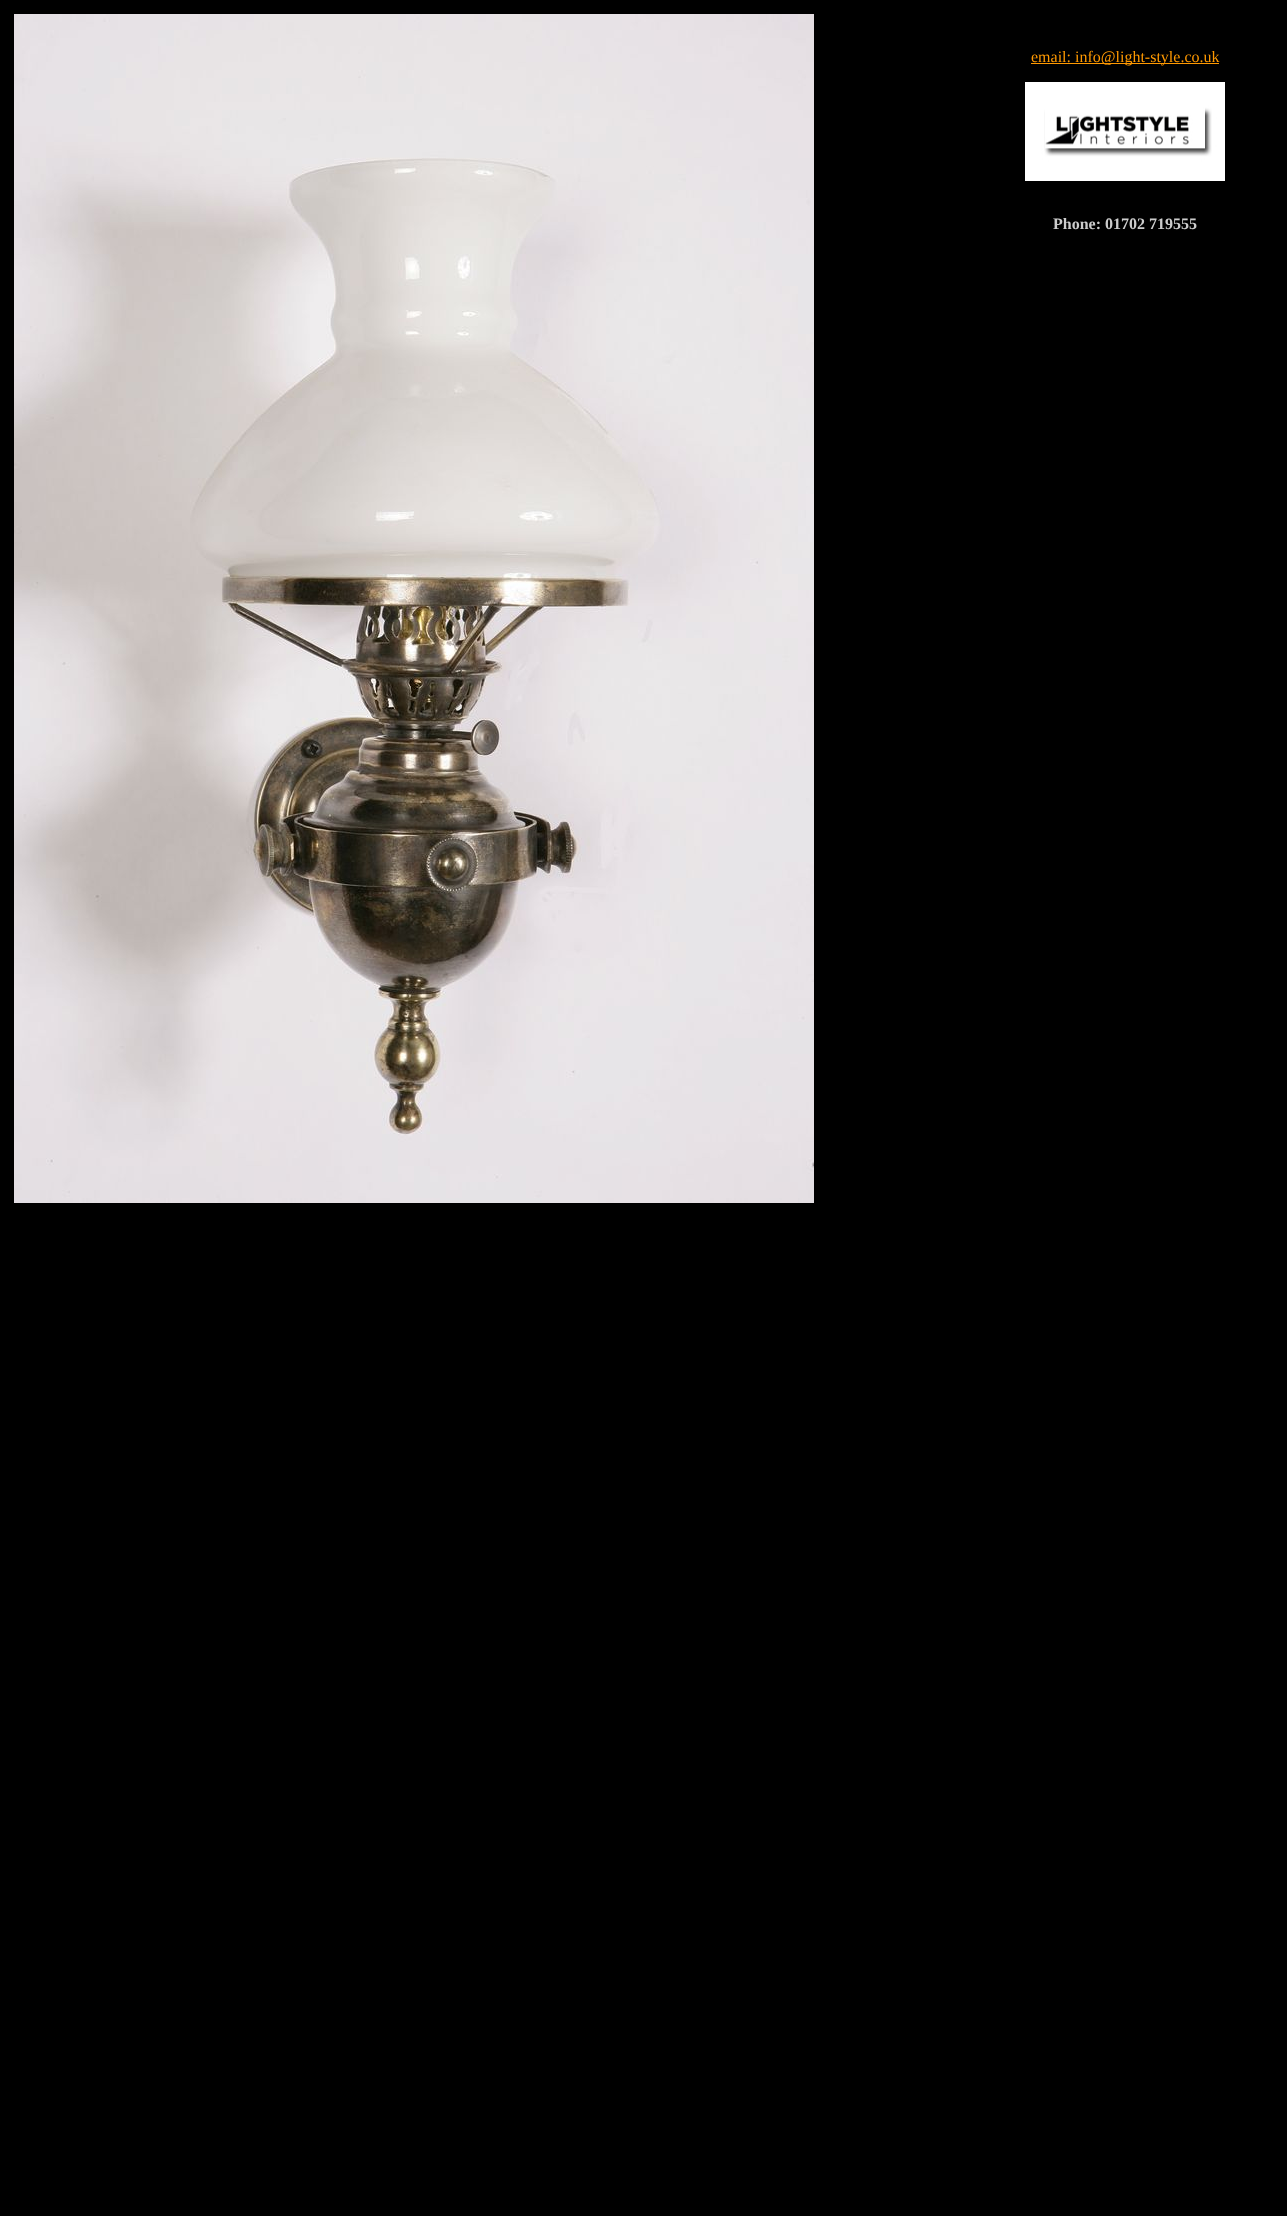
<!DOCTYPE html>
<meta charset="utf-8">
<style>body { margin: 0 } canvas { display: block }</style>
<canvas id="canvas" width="1287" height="2216"></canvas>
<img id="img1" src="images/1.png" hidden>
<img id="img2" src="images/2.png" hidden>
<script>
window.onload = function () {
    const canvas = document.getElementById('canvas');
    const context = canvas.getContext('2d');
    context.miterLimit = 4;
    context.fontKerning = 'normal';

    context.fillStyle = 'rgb(0, 0, 0)';
    context.fillRect(0, 0, 1287, 2216);
    context.drawImage(document.getElementById('img1'), 14, 14, 800, 1189);
    context.fillStyle = 'rgb(255, 153, 0)';
    context.fillRect(1031, 63, 188, 1);
    context.drawImage(document.getElementById('img2'), 1025, 82, 200, 99);
    context.font = '16px Liberation Serif';
    context.fillText('email: info@light-style.co.uk', 1031, 62);
    context.font = 'bold 16px Liberation Serif';
    context.fillStyle = 'rgb(204, 204, 204)';
    context.fillText('Phone: 01702 719555', 1053, 229);
};
</script>
